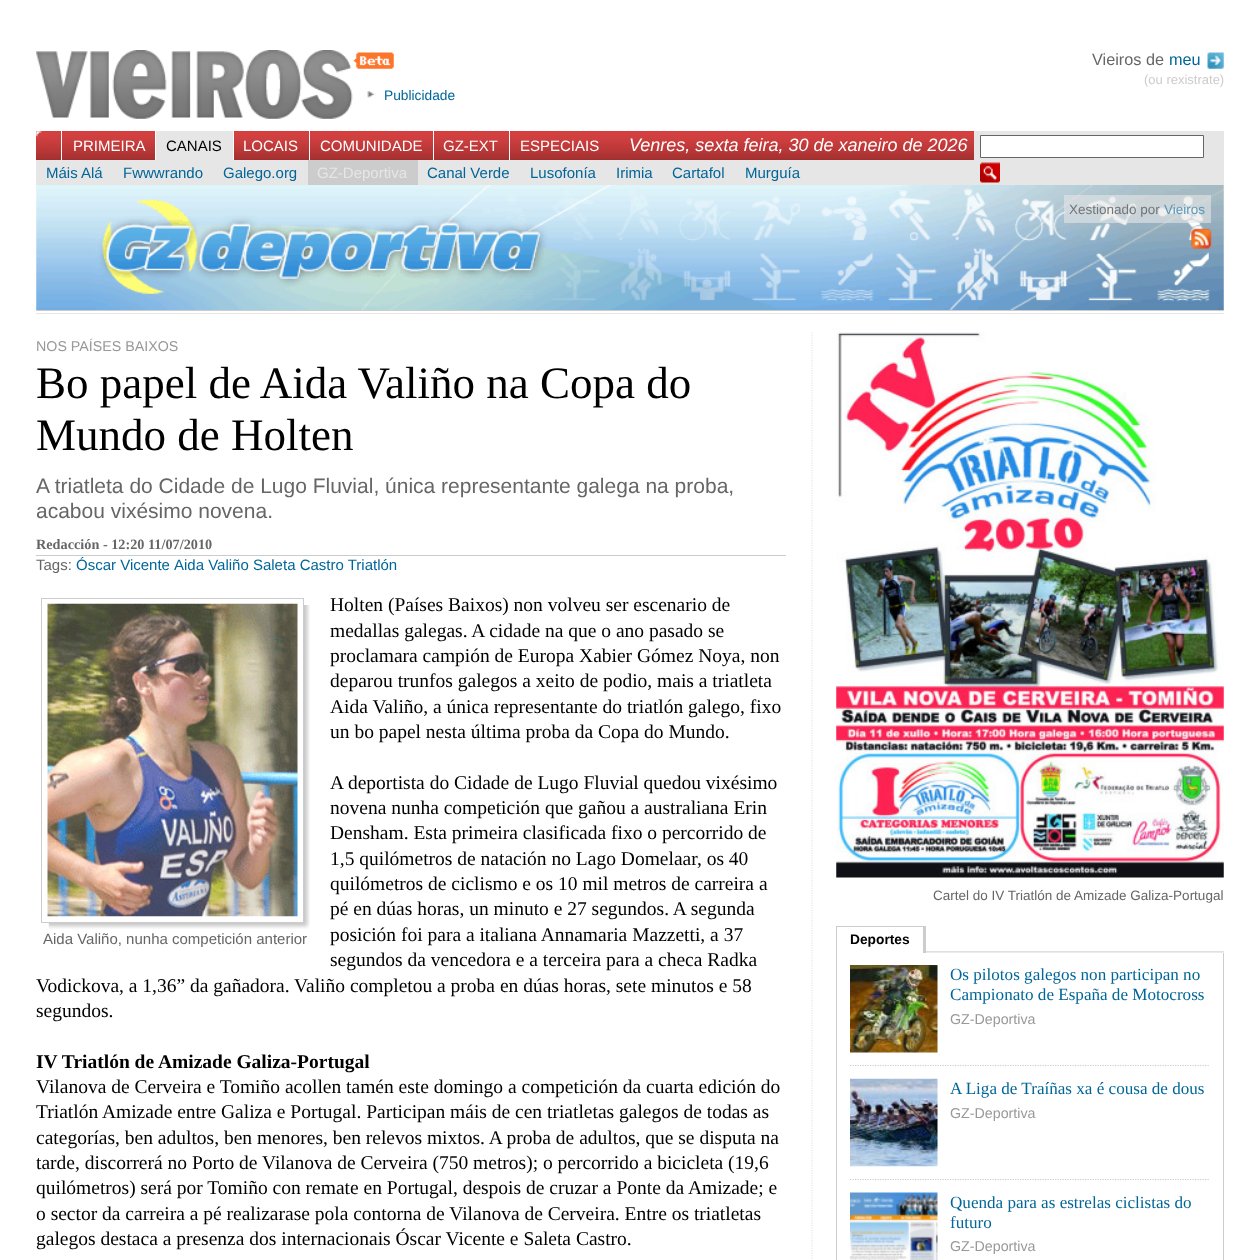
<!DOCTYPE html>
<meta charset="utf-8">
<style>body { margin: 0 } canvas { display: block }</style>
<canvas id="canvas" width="1260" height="1260"></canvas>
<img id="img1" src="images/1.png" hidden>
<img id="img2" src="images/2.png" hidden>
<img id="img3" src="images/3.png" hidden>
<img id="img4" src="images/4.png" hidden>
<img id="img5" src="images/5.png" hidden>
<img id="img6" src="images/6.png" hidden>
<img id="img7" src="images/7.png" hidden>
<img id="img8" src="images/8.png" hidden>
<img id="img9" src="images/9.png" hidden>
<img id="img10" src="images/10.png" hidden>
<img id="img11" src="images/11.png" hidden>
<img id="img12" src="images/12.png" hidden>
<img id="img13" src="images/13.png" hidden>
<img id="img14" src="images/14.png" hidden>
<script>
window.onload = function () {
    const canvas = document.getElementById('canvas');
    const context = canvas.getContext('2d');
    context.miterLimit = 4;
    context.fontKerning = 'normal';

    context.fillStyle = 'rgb(255, 255, 255)';
    context.fillRect(0, 0, 1260, 1260);
    context.drawImage(document.getElementById('img1'), 36, 50, 358, 69);
    context.drawImage(document.getElementById('img2'), 1207, 52, 17, 17);
    context.drawImage(document.getElementById('img3'), 367, 91, 8, 7);
    context.fillStyle = 'rgb(204, 51, 51)';
    context.fillRect(36, 131, 938, 29);
    context.drawImage(document.getElementById('img4'), 36, 131, 938, 29);
    context.fillStyle = 'rgb(255, 255, 255)';
    context.fillRect(61, 131, 1, 29);
    context.fillRect(155, 131, 1, 29);
    context.fillStyle = 'rgb(230, 230, 230)';
    context.fillRect(156, 131, 77, 29);
    context.fillStyle = 'rgb(255, 255, 255)';
    context.fillRect(233, 131, 1, 29);
    context.fillRect(309, 131, 1, 29);
    context.fillRect(433, 131, 1, 29);
    context.fillRect(509, 131, 1, 29);
    context.fillStyle = 'rgb(230, 230, 230)';
    context.fillRect(974, 131, 250, 29);
    context.fillStyle = 'rgb(255, 255, 255)';
    context.beginPath();
    context.rect(980.5, 135.5, 223, 22);
    context.fill();
    context.strokeStyle = 'rgb(102, 102, 102)';
    context.stroke();
    context.fillStyle = 'rgb(230, 230, 230)';
    context.fillRect(36, 160, 1188, 25);
    context.drawImage(document.getElementById('img5'), 980, 162, 20, 21);
    context.fillStyle = 'rgb(204, 204, 204)';
    context.fillRect(308, 160, 110, 25);
    context.drawImage(document.getElementById('img6'), 36, 185, 1188, 125);
    context.fillStyle = 'rgb(230, 230, 230)';
    context.fillRect(36, 313, 1188, 1);
    context.fillStyle = 'rgb(204, 204, 204)';
    context.fillRect(36, 310, 1188, 1);
    context.fillStyle = 'rgba(230, 230, 230, 0.6)';
    context.fillRect(1064, 195, 147, 28);
    context.drawImage(document.getElementById('img7'), 1191, 228, 21, 21);
    context.beginPath();
    context.moveTo(812, 332.5);
    context.lineTo(812, 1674);
    context.strokeStyle = 'rgb(230, 230, 230)';
    context.lineWidth = 1.2;
    context.setLineDash([1.25, 1.25]);
    context.stroke();
    context.fillStyle = 'rgb(204, 204, 204)';
    context.fillRect(36, 555, 750, 1);
    context.drawImage(document.getElementById('img8'), 48, 605, 262, 324);
    context.strokeStyle = 'rgb(204, 204, 204)';
    context.lineWidth = 1;
    context.setLineDash([]);
    context.strokeRect(41.5, 598.5, 262, 324);
    context.drawImage(document.getElementById('img9'), 47, 603, 251, 314);
    context.drawImage(document.getElementById('img10'), 836, 332, 388, 546);
    context.drawImage(document.getElementById('img11'), 926, 951, 298, 2);
    context.fillRect(836, 926, 89, 1);
    context.fillRect(923, 926, 3, 27);
    context.fillRect(836, 926, 1, 27);
    context.fillRect(1223, 953, 1, 307);
    context.fillRect(836, 953, 1, 307);
    context.beginPath();
    context.moveTo(850, 1065.5);
    context.lineTo(1210, 1065.5);
    context.lineWidth = 1.2;
    context.setLineDash([1.25, 1.25]);
    context.stroke();
    context.drawImage(document.getElementById('img12'), 850, 965, 88, 88);
    context.beginPath();
    context.moveTo(850, 1179.5);
    context.lineTo(1210, 1179.5);
    context.stroke();
    context.drawImage(document.getElementById('img13'), 850, 1078, 88, 89);
    context.drawImage(document.getElementById('img14'), 850, 1192, 88, 68);
    context.font = '16.25px Liberation Sans';
    context.fillStyle = 'rgb(102, 102, 102)';
    context.fillText('Vieiros de', 1092, 65);
    context.fillStyle = 'rgb(0, 102, 153)';
    context.fillText('meu', 1169, 65);
    context.font = '13px Liberation Sans';
    context.fillStyle = 'rgb(204, 204, 204)';
    context.fillText('(ou rexistrate)', 1144, 84);
    context.font = '13.75px Liberation Sans';
    context.fillStyle = 'rgb(0, 102, 153)';
    context.fillText('Publicidade', 384, 100);
    context.font = '15px Liberation Sans';
    context.fillStyle = 'rgb(255, 255, 255)';
    context.fillText('PRIMEIRA', 73, 151);
    context.fillStyle = 'rgb(0, 0, 0)';
    context.fillText('CANAIS', 166, 151);
    context.fillStyle = 'rgb(255, 255, 255)';
    context.fillText('LOCAIS', 243, 151);
    context.fillText('COMUNIDADE', 320, 151);
    context.fillText('GZ-EXT', 443, 151);
    context.fillText('ESPECIAIS', 520, 151);
    context.font = 'italic 18px Liberation Sans';
    context.fillText('Venres, sexta feira, 30 de xaneiro de 2026', 629, 151);
    context.font = '15px Liberation Sans';
    context.fillStyle = 'rgb(0, 102, 153)';
    context.fillText('Máis Alá', 46, 178);
    context.fillText('Fwwwrando', 123, 178);
    context.fillText('Galego.org', 223, 178);
    context.fillStyle = 'rgb(230, 230, 230)';
    context.fillText('GZ-Deportiva', 317, 178);
    context.fillStyle = 'rgb(0, 102, 153)';
    context.fillText('Canal Verde', 427, 178);
    context.fillText('Lusofonía', 530, 178);
    context.fillText('Irimia', 616, 178);
    context.fillText('Cartafol', 672, 178);
    context.fillText('Murguía', 745, 178);
    context.font = '13.5px Liberation Sans';
    context.fillStyle = 'rgb(115, 118, 120)';
    context.fillText('Xestionado por', 1069, 214);
    context.fillStyle = 'rgb(88, 151, 183)';
    context.fillText('Vieiros', 1164, 214);
    context.font = '14.25px Liberation Sans';
    context.fillStyle = 'rgb(153, 153, 153)';
    context.fillText('NOS PAÍSES BAIXOS', 36, 351);
    context.font = '45px Liberation Serif';
    context.fillStyle = 'rgb(0, 0, 0)';
    context.fillText('Bo papel de Aida Valiño na Copa do', 36, 398);
    context.fillText('Mundo de Holten', 36, 450);
    context.font = '21px Liberation Sans';
    context.fillStyle = 'rgb(102, 102, 102)';
    context.fillText('A triatleta do Cidade de Lugo Fluvial, única representante galega na proba,', 36, 493);
    context.fillText('acabou vixésimo novena.', 36, 518);
    context.font = 'bold 14.25px Liberation Serif';
    context.fillText('Redacción - 12:20 11/07/2010', 36, 549);
    context.font = '15px Liberation Sans';
    context.fillText('Tags:', 36, 570);
    context.fillStyle = 'rgb(0, 102, 153)';
    context.fillText('Óscar Vicente', 76, 570);
    context.fillText('Aida Valiño Saleta Castro Triatlón', 174, 570);
    context.font = '19.5px Liberation Serif';
    context.fillStyle = 'rgb(0, 0, 0)';
    context.fillText('Holten (Países Baixos) non volveu ser escenario de', 330, 611);
    context.fillText('medallas galegas. A cidade na que o ano pasado se', 330, 637);
    context.fillText('proclamara campión de Europa Xabier Gómez Noya, non', 330, 662);
    context.fillText('deparou trunfos galegos a xeito de podio, mais a triatleta', 330, 687);
    context.fillText('Aida Valiño, a única representante do triatlón galego, fixo', 330, 713);
    context.fillText('un bo papel nesta última proba da Copa do Mundo.', 330, 738);
    context.fillText('A deportista do Cidade de Lugo Fluvial quedou vixésimo', 330, 789);
    context.fillText('novena nunha competición que gañou a australiana Erin', 330, 814);
    context.fillText('Densham. Esta primeira clasificada fixo o percorrido de', 330, 839);
    context.fillText('1,5 quilómetros de natación no Lago Domelaar, os 40', 330, 865);
    context.fillText('quilómetros de ciclismo e os 10 mil metros de carreira a', 330, 890);
    context.fillText('pé en dúas horas, un minuto e 27 segundos. A segunda', 330, 915);
    context.fillText('posición foi para a italiana Annamaria Mazzetti, a 37', 330, 941);
    context.fillText('segundos da vencedora e a terceira para a checa Radka', 330, 966);
    context.fillText('Vodickova, a 1,36” da gañadora. Valiño completou a proba en dúas horas, sete minutos e 58', 36, 992);
    context.fillText('segundos.', 36, 1017);
    context.font = 'bold 19.5px Liberation Serif';
    context.fillText('IV Triatlón de Amizade Galiza-Portugal', 36, 1068);
    context.font = '19.5px Liberation Serif';
    context.fillText('Vilanova de Cerveira e Tomiño acollen tamén este domingo a competición da cuarta edición do', 36, 1093);
    context.fillText('Triatlón Amizade entre Galiza e Portugal. Participan máis de cen triatletas galegos de todas as', 36, 1118);
    context.fillText('categorías, ben adultos, ben menores, ben relevos mixtos. A proba de adultos, que se disputa na', 36, 1144);
    context.fillText('tarde, discorrerá no Porto de Vilanova de Cerveira (750 metros); o percorrido a bicicleta (19,6', 36, 1169);
    context.fillText('quilómetros) será por Tomiño con remate en Portugal, despois de cruzar a Ponte da Amizade; e', 36, 1194);
    context.fillText('o sector da carreira a pé realizarase pola contorna de Vilanova de Cerveira. Entre os triatletas', 36, 1220);
    context.fillText('galegos destaca a presenza dos internacionais Óscar Vicente e Saleta Castro.', 36, 1245);
    context.font = '15px Liberation Sans';
    context.fillStyle = 'rgb(102, 102, 102)';
    context.fillText('Aida Valiño, nunha competición anterior', 43, 944);
    context.font = '13.5px Liberation Sans';
    context.fillText('Cartel do IV Triatlón de Amizade Galiza-Portugal', 933, 900);
    context.font = 'bold 13.75px Liberation Sans';
    context.fillStyle = 'rgb(0, 0, 0)';
    context.fillText('Deportes', 850, 944);
    context.font = '17.1px Liberation Serif';
    context.fillStyle = 'rgb(0, 102, 153)';
    context.fillText('Os pilotos galegos non participan no', 950, 980);
    context.fillText('Campionato de España de Motocross', 950, 1000);
    context.font = '14.25px Liberation Sans';
    context.fillStyle = 'rgb(153, 153, 153)';
    context.fillText('GZ-Deportiva', 950, 1024);
    context.font = '17.1px Liberation Serif';
    context.fillStyle = 'rgb(0, 102, 153)';
    context.fillText('A Liga de Traíñas xa é cousa de dous', 950, 1094);
    context.font = '14.25px Liberation Sans';
    context.fillStyle = 'rgb(153, 153, 153)';
    context.fillText('GZ-Deportiva', 950, 1118);
    context.font = '17.1px Liberation Serif';
    context.fillStyle = 'rgb(0, 102, 153)';
    context.fillText('Quenda para as estrelas ciclistas do', 950, 1208);
    context.fillText('futuro', 950, 1228);
    context.font = '14.25px Liberation Sans';
    context.fillStyle = 'rgb(153, 153, 153)';
    context.fillText('GZ-Deportiva', 950, 1251);
};
</script>
